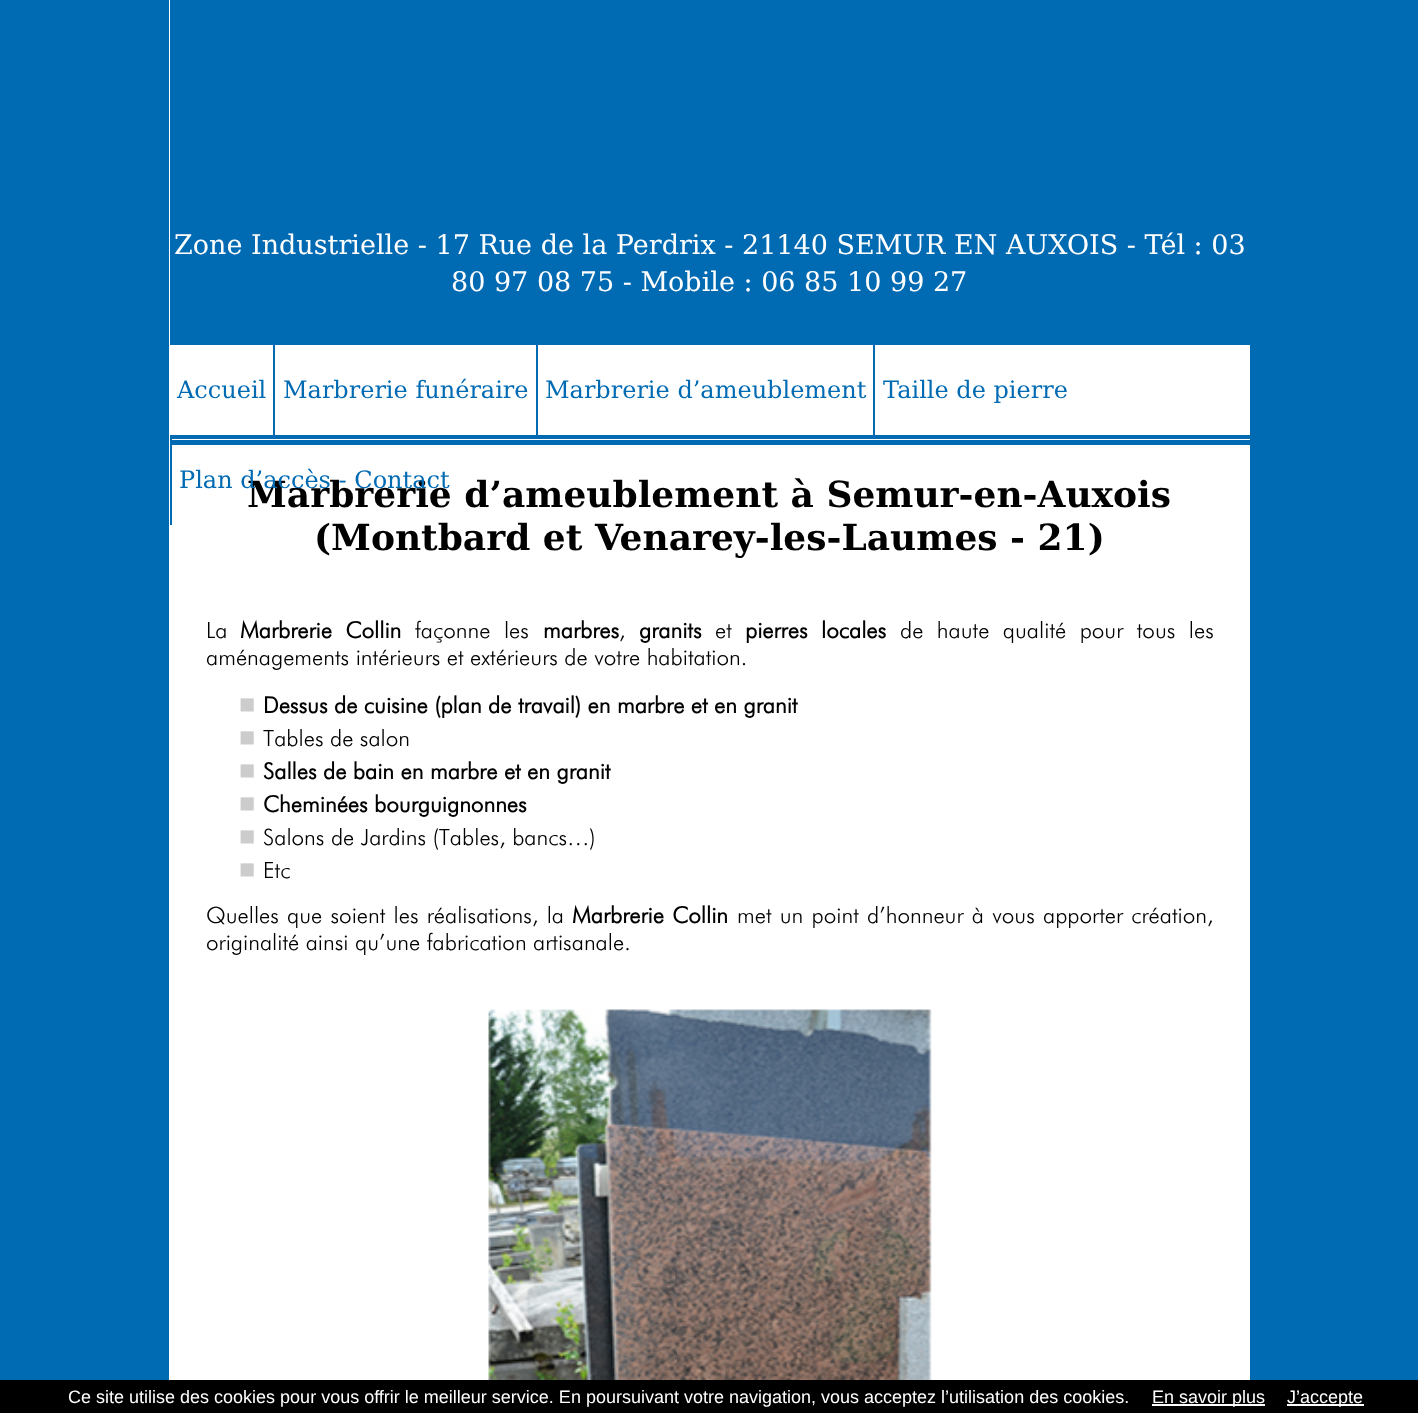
<!DOCTYPE html>
<meta charset="utf-8">
<style>body { margin: 0 } canvas { display: block }</style>
<canvas id="canvas" width="1418" height="1413"></canvas>
<img id="img1" src="images/1.png" hidden>
<script>
window.onload = function () {
    const canvas = document.getElementById('canvas');
    const context = canvas.getContext('2d');
    context.miterLimit = 4;
    context.fontKerning = 'normal';

    context.fillStyle = 'rgb(0, 106, 179)';
    context.fillRect(0, 0, 1418, 1413);
    context.fillStyle = 'rgb(255, 255, 255)';
    context.fillRect(169, 0, 1081, 1380);
    context.fillStyle = 'rgb(0, 106, 179)';
    context.fillRect(170, 0, 1080, 345);
    context.fillRect(273, 345, 2, 90);
    context.fillRect(536, 345, 2, 90);
    context.fillRect(873, 345, 2, 90);
    context.fillRect(170, 435, 1080, 4);
    context.fillRect(170, 440, 1080, 5);
    context.fillRect(170, 435, 2, 90);
    context.drawImage(document.getElementById('img1'), 488, 1009, 444, 371);
    context.fillStyle = 'rgb(0, 0, 0)';
    context.fillRect(0, 1380, 1418, 33);
    context.fillStyle = 'rgb(255, 255, 255)';
    context.fillRect(1152, 1404, 113, 2);
    context.fillRect(1287, 1404, 77, 2);
    context.font = '27px DejaVu Serif';
    context.fillText('Zone Industrielle - 17 Rue de la Perdrix - 21140 SEMUR EN AUXOIS - Tél : 03', 174, 254);
    context.fillText('80 97 08 75 - Mobile : 06 85 10 99 27', 451, 291);
    context.font = '24px DejaVu Serif';
    context.fillStyle = 'rgb(0, 106, 179)';
    context.fillText('Accueil', 177, 398);
    context.fillText('Marbrerie funéraire', 283, 398);
    context.fillText('Marbrerie d’ameublement', 545, 398);
    context.fillText('Taille de pierre', 883, 398);
    context.font = 'bold 36px DejaVu Serif';
    context.fillStyle = 'rgb(0, 0, 0)';
    context.fillText('Marbrerie d’ameublement à Semur-en-Auxois', 247, 507);
    context.font = '24px DejaVu Serif';
    context.fillStyle = 'rgb(0, 106, 179)';
    context.fillText('Plan d’accès - Contact', 179, 488);
    context.font = 'bold 36px DejaVu Serif';
    context.fillStyle = 'rgb(0, 0, 0)';
    context.fillText('(Montbard et Venarey-les-Laumes - 21)', 314, 550);
    context.font = '22.5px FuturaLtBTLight';
    context.fillText('La', 206, 638);
    context.wordSpacing = '7px';
    context.font = 'bold 22.5px FuturaLtBTLight';
    context.fillText('Marbrerie Collin', 240, 638);
    context.font = '22.5px FuturaLtBTLight';
    context.fillText('façonne les', 415, 638);
    context.wordSpacing = '0px';
    context.font = 'bold 22.5px FuturaLtBTLight';
    context.fillText('marbres', 543, 638);
    context.font = '22.5px FuturaLtBTLight';
    context.fillText(',', 619, 638);
    context.font = 'bold 22.5px FuturaLtBTLight';
    context.fillText('granits', 639, 638);
    context.font = '22.5px FuturaLtBTLight';
    context.fillText('et', 715, 638);
    context.wordSpacing = '7px';
    context.font = 'bold 22.5px FuturaLtBTLight';
    context.fillText('pierres locales', 745, 638);
    context.font = '22.5px FuturaLtBTLight';
    context.fillText('de haute qualité pour tous les', 900, 638);
    context.wordSpacing = '0px';
    context.fillText('aménagements intérieurs et extérieurs de votre habitation.', 206, 665);
    context.font = 'bold 27px Liberation Serif';
    context.fillStyle = 'rgb(204, 204, 204)';
    context.fillText('■', 239, 713);
    context.font = 'bold 22.5px FuturaLtBTLight';
    context.fillStyle = 'rgb(0, 0, 0)';
    context.fillText('Dessus de cuisine (plan de travail) en marbre et en granit', 263, 713);
    context.font = 'bold 27px Liberation Serif';
    context.fillStyle = 'rgb(204, 204, 204)';
    context.fillText('■', 239, 746);
    context.font = '22.5px FuturaLtBTLight';
    context.fillStyle = 'rgb(0, 0, 0)';
    context.fillText('Tables de salon', 263, 746);
    context.font = 'bold 27px Liberation Serif';
    context.fillStyle = 'rgb(204, 204, 204)';
    context.fillText('■', 239, 779);
    context.font = 'bold 22.5px FuturaLtBTLight';
    context.fillStyle = 'rgb(0, 0, 0)';
    context.fillText('Salles de bain en marbre et en granit', 263, 779);
    context.font = 'bold 27px Liberation Serif';
    context.fillStyle = 'rgb(204, 204, 204)';
    context.fillText('■', 239, 812);
    context.font = 'bold 22.5px FuturaLtBTLight';
    context.fillStyle = 'rgb(0, 0, 0)';
    context.fillText('Cheminées bourguignonnes', 263, 812);
    context.font = 'bold 27px Liberation Serif';
    context.fillStyle = 'rgb(204, 204, 204)';
    context.fillText('■', 239, 845);
    context.font = '22.5px FuturaLtBTLight';
    context.fillStyle = 'rgb(0, 0, 0)';
    context.fillText('Salons de Jardins (Tables, bancs…)', 263, 845);
    context.font = 'bold 27px Liberation Serif';
    context.fillStyle = 'rgb(204, 204, 204)';
    context.fillText('■', 239, 878);
    context.font = '22.5px FuturaLtBTLight';
    context.fillStyle = 'rgb(0, 0, 0)';
    context.fillText('Etc', 263, 878);
    context.wordSpacing = '1.75px';
    context.fillText('Quelles que soient les réalisations, la', 206, 923);
    context.font = 'bold 22.5px FuturaLtBTLight';
    context.fillText('Marbrerie Collin', 572, 923);
    context.font = '22.5px FuturaLtBTLight';
    context.fillText('met un point d’honneur à vous apporter création,', 737, 923);
    context.wordSpacing = '0px';
    context.fillText('originalité ainsi qu’une fabrication artisanale.', 206, 950);
    context.font = '18px Liberation Sans';
    context.fillStyle = 'rgb(255, 255, 255)';
    context.fillText('Ce site utilise des cookies pour vous offrir le meilleur service. En poursuivant votre navigation, vous acceptez l’utilisation des cookies.', 68, 1403);
    context.fillText('En savoir plus', 1152, 1403);
    context.fillText('J’accepte', 1287, 1403);
};
</script>
